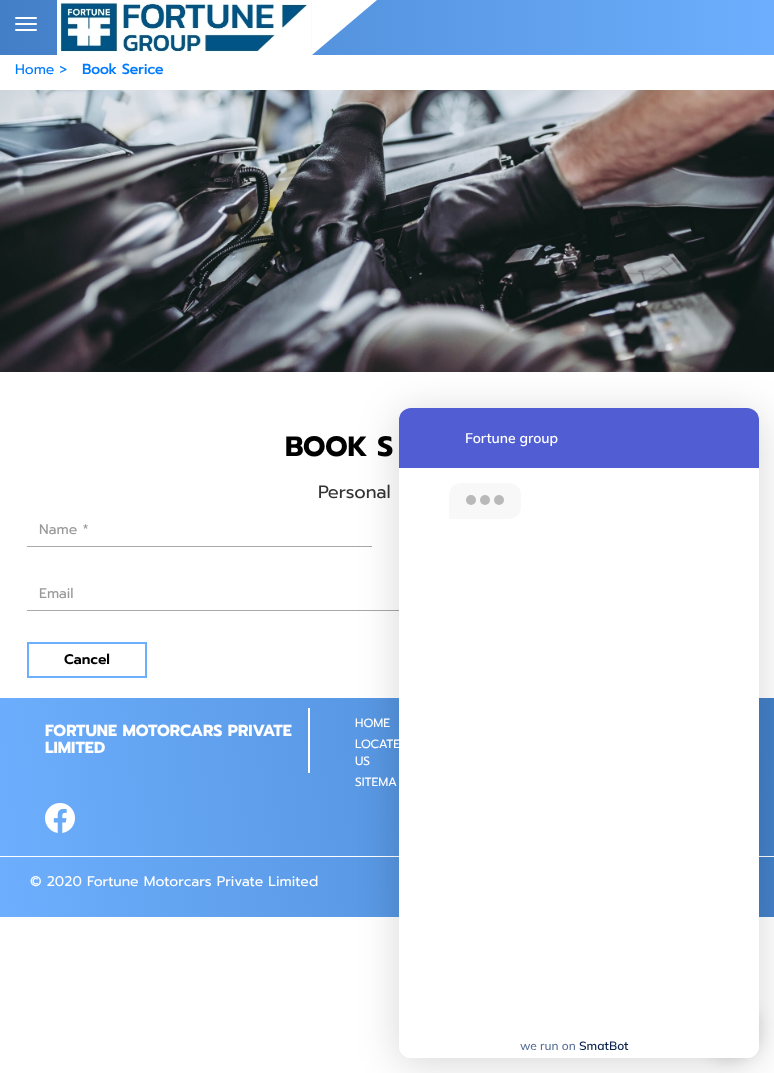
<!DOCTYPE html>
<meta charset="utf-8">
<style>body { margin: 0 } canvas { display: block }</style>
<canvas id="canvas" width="774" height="1073"></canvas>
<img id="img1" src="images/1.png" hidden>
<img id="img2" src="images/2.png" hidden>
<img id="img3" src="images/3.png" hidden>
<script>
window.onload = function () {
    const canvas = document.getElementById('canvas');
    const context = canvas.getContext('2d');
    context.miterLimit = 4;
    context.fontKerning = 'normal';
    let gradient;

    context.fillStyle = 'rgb(255, 255, 255)';
    context.fillRect(0, 0, 774, 1073);
    gradient = context.createLinearGradient(774, 27, 0, 28);
    gradient.addColorStop(0, 'rgb(109, 175, 254)');
    gradient.addColorStop(1, 'rgb(67, 127, 199)');
    context.fillStyle = gradient;
    context.fillRect(0, 0, 774, 55);
    context.fillStyle = 'rgb(255, 255, 255)';
    context.beginPath();
    context.roundRect(15, 17, 22, 2, 1);
    context.fill();
    context.beginPath();
    context.roundRect(15, 23, 22, 2, 1);
    context.fill();
    context.beginPath();
    context.roundRect(15, 29, 22, 2, 1);
    context.fill();
    context.drawImage(document.getElementById('img1'), 57, 0, 255, 55);
    context.beginPath();
    context.moveTo(312, 0);
    context.lineTo(377, 0);
    context.lineTo(312, 55);
    context.closePath();
    context.fill();
    context.drawImage(document.getElementById('img2'), 0, 90, 774, 282);
    context.fillStyle = 'rgb(168, 168, 168)';
    context.fillRect(27, 546, 345, 1);
    context.fillRect(27, 610, 372, 1);
    context.strokeStyle = 'rgb(109, 175, 254)';
    context.lineWidth = 2;
    context.strokeRect(28, 643, 118, 34);
    gradient = context.createLinearGradient(-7.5, 856, 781, 759);
    gradient.addColorStop(0, 'rgb(109, 175, 254)');
    gradient.addColorStop(1, 'rgb(67, 127, 199)');
    context.fillStyle = gradient;
    context.fillRect(0, 698, 774, 219);
    context.fillStyle = 'rgb(255, 255, 255)';
    context.fillRect(0, 856, 774, 1);
    context.fillRect(308, 708, 2, 65);
    context.drawImage(document.getElementById('img3'), 45, 803, 30, 30);
    context.fillStyle = 'rgba(0, 0, 0, 0.16)';
    context.filter = 'blur(20px)';
    context.beginPath();
    context.roundRect(399, 413, 360, 650, 12);
    context.fill();
    context.filter = 'none';
    context.fillStyle = 'rgba(0, 0, 0, 0.15)';
    context.filter = 'blur(8px)';
    context.beginPath();
    context.roundRect(702, 1002, 57, 57, 28.5);
    context.fill();
    context.filter = 'none';
    context.fillStyle = 'rgb(255, 255, 255)';
    context.beginPath();
    context.roundRect(399, 408, 360, 650, 12);
    context.fill();
    context.fillStyle = 'rgb(80, 93, 211)';
    context.beginPath();
    context.roundRect(399, 408, 360, 60, [12, 12, 0, 0]);
    context.fill();
    context.fillStyle = 'rgb(248, 248, 248)';
    context.beginPath();
    context.roundRect(449, 483, 72, 36, [12, 12, 12, 0]);
    context.fill();
    context.fillStyle = 'rgb(185, 185, 185)';
    context.beginPath();
    context.arc(471, 500, 5, 0, 2 * Math.PI);
    context.fill();
    context.beginPath();
    context.arc(485, 500, 5, 0, 2 * Math.PI);
    context.fill();
    context.beginPath();
    context.arc(499, 500, 5, 0, 2 * Math.PI);
    context.fill();
    context.save();
    context.beginPath();
    context.roundRect(399, 408, 360, 650, 12);
    context.clip();
    context.fillStyle = 'rgb(255, 255, 255)';
    context.beginPath();
    context.roundRect(399, 1029, 360, 36, [0, 0, 12, 12]);
    context.fill();
    context.restore();
    context.font = '14px Prompt';
    context.fillStyle = 'rgb(0, 123, 255)';
    context.fillText('Home >', 15, 74);
    context.font = 'bold 14px Prompt';
    context.fillText('Book Serice', 82, 74);
    context.font = 'bold 28px "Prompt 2"';
    context.fillStyle = 'rgb(0, 0, 0)';
    context.fillText('BOOK S', 285, 456);
    context.font = '18px Prompt';
    context.fillStyle = 'rgb(51, 51, 51)';
    context.fillText('Personal', 318, 498);
    context.font = '14px Prompt';
    context.fillStyle = 'rgb(153, 153, 153)';
    context.fillText('Name *', 39, 534);
    context.fillText('Email', 39, 598);
    context.font = '600 14px Prompt';
    context.fillStyle = 'rgb(0, 0, 0)';
    context.fillText('Cancel', 64, 664);
    context.font = 'bold 16px "Prompt 2"';
    context.fillStyle = 'rgb(255, 255, 255)';
    context.fillText('FORTUNE MOTORCARS PRIVATE', 45, 736);
    context.fillText('LIMITED', 45, 753);
    context.font = '12px Prompt';
    context.fillText('HOME', 355, 727);
    context.fillText('LOCATE', 355, 748);
    context.fillText('US', 355, 765);
    context.fillText('SITEMA', 355, 786);
    context.font = '14px Prompt';
    context.fillText('© 2020 Fortune Motorcars Private Limited', 30, 886);
    context.font = '600 14px Mulish';
    context.fillText('Fortune group', 465, 443);
    context.font = '500 12px Mulish';
    context.fillStyle = 'rgb(87, 110, 147)';
    context.fillText('we run on', 520, 1050);
    context.font = '600 12px Mulish';
    context.fillStyle = 'rgb(9, 33, 72)';
    context.fillText('SmatBot', 579, 1050);
};
</script>
